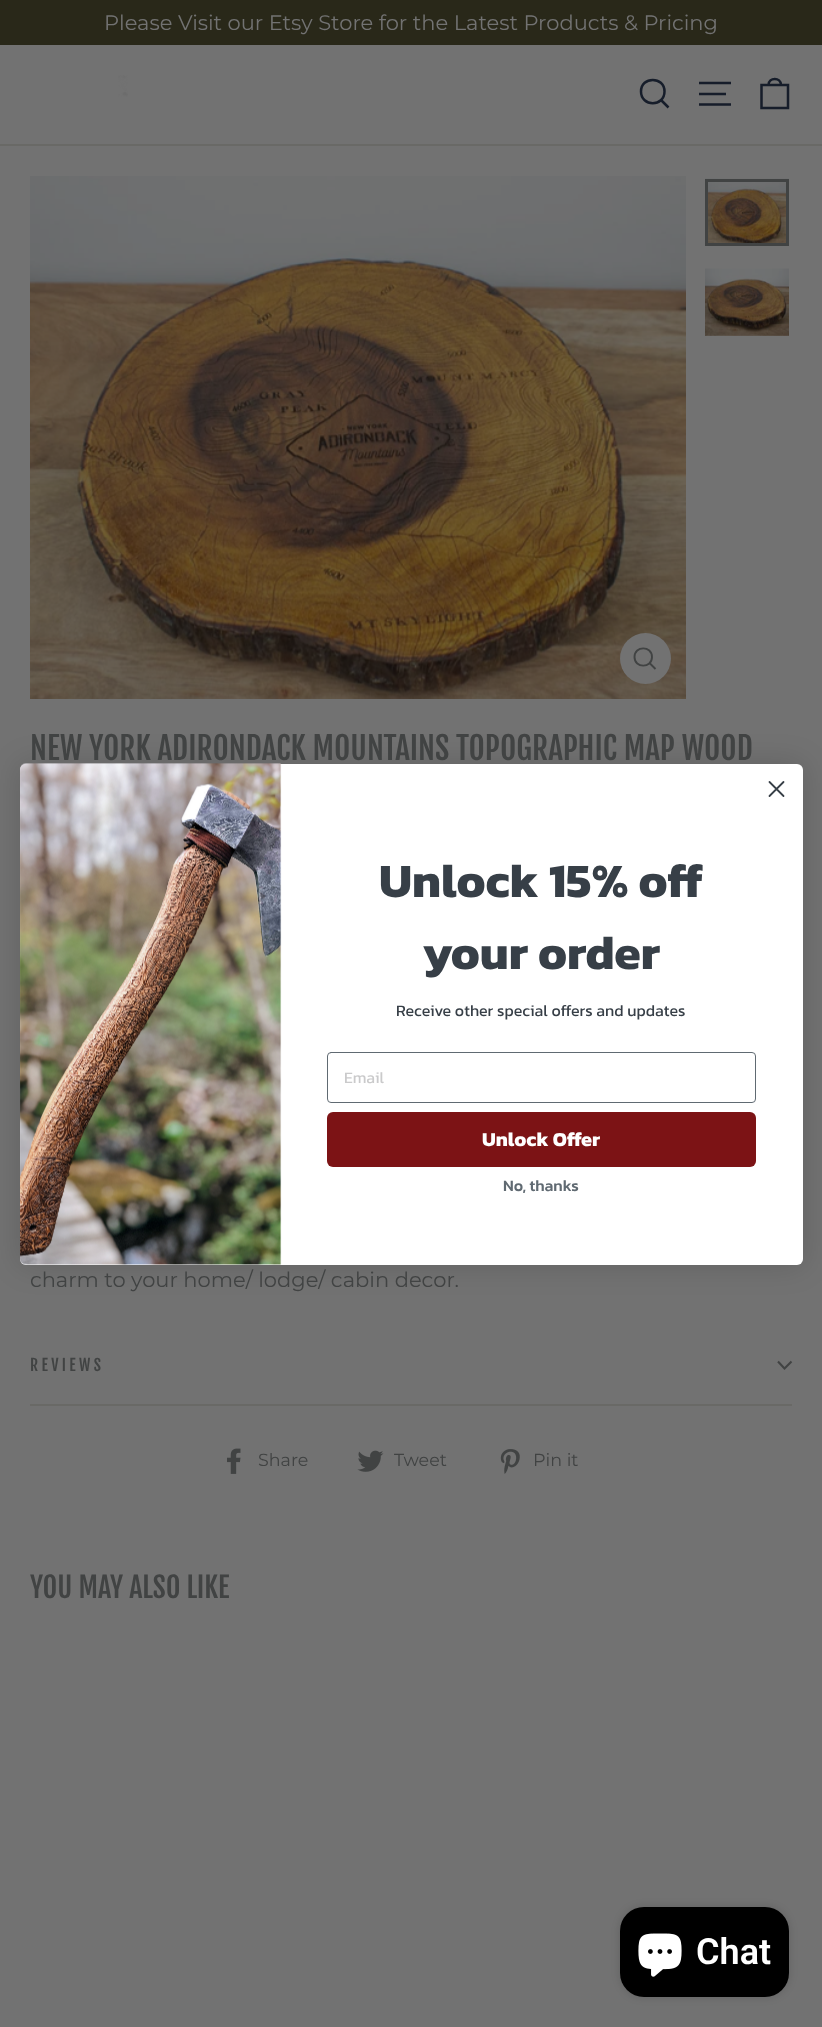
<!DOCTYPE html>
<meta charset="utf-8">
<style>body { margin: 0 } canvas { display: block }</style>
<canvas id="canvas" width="822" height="2027"></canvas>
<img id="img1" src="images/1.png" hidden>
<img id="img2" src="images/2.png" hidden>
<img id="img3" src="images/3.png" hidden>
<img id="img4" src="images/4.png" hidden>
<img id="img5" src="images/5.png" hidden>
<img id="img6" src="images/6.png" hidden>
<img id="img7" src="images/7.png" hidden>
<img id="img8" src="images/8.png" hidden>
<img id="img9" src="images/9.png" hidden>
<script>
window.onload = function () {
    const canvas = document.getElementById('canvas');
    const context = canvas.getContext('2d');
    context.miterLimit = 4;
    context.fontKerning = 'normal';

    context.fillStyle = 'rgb(114, 114, 114)';
    context.fillRect(0, 0, 822, 2027);
    context.fillStyle = 'rgb(41, 40, 25)';
    context.fillRect(0, 0, 822, 45);
    context.fillStyle = 'rgb(105, 105, 102)';
    context.fillRect(0, 144, 822, 2);
    context.drawImage(document.getElementById('img1'), 118, 75, 10, 22);
    context.beginPath();
    context.moveTo(664.5, 91.5);
    context.bezierCurveTo(664.5, 107, 641, 107, 641, 91.5);
    context.bezierCurveTo(641, 76, 664.5, 76, 664.5, 91.5);
    context.closePath();
    context.moveTo(668.5, 107.5);
    context.lineTo(661, 100);
    context.strokeStyle = 'rgb(22, 29, 42)';
    context.lineWidth = 2.5;
    context.stroke();
    context.beginPath();
    context.moveTo(699, 83);
    context.lineTo(731, 83);
    context.moveTo(699, 94);
    context.lineTo(726, 94);
    context.moveTo(699, 104.5);
    context.lineTo(731, 104.5);
    context.stroke();
    context.beginPath();
    context.moveTo(761.5, 85);
    context.lineTo(788, 85);
    context.lineTo(788, 108);
    context.lineTo(761.5, 108);
    context.closePath();
    context.moveTo(768.5, 85);
    context.bezierCurveTo(768.5, 77, 781, 77, 781, 85);
    context.stroke();
    context.drawImage(document.getElementById('img2'), 30, 176, 656, 523);
    context.fillStyle = 'rgb(114, 114, 114)';
    context.beginPath();
    context.arc(645.5, 658.5, 25.5, 0, 2 * Math.PI);
    context.fill();
    context.beginPath();
    context.moveTo(652, 657);
    context.bezierCurveTo(652, 668.5, 634.5, 668.5, 634.5, 657);
    context.bezierCurveTo(634.5, 645.5, 652, 645.5, 652, 657);
    context.closePath();
    context.moveTo(655.5, 669);
    context.lineTo(649.5, 663);
    context.strokeStyle = 'rgb(65, 67, 67)';
    context.lineWidth = 1.9;
    context.stroke();
    context.drawImage(document.getElementById('img3'), 705, 178, 84, 65);
    context.lineWidth = 3;
    context.strokeRect(706.5, 180.5, 81, 64);
    context.drawImage(document.getElementById('img4'), 705, 268, 84, 68);
    context.fillStyle = 'rgb(105, 105, 102)';
    context.fillRect(30, 1404, 762, 2);
    context.beginPath();
    context.moveTo(778, 1361.5);
    context.lineTo(784.5, 1368.5);
    context.lineTo(791.5, 1361.5);
    context.lineWidth = 2.1;
    context.stroke();
    context.drawImage(document.getElementById('img5'), 227, 1448, 14, 26);
    context.drawImage(document.getElementById('img6'), 357, 1450, 27, 22);
    context.drawImage(document.getElementById('img7'), 500, 1449, 20, 25);
    context.fillStyle = 'rgba(0, 0, 0, 0.15)';
    context.filter = 'blur(15px)';
    context.beginPath();
    context.roundRect(20, 764, 783, 501, 6);
    context.fill();
    context.filter = 'none';
    context.fillStyle = 'rgb(255, 255, 255)';
    context.beginPath();
    context.roundRect(20, 764, 783, 501, 6);
    context.fill();
    context.beginPath();
    context.moveTo(769.5, 782);
    context.lineTo(783.5, 796);
    context.moveTo(769.5, 796);
    context.lineTo(783.5, 782);
    context.closePath();
    context.strokeStyle = 'rgb(55, 63, 71)';
    context.lineWidth = 1.8;
    context.lineCap = 'round';
    context.lineJoin = 'round';
    context.stroke();
    context.drawImage(document.getElementById('img8'), 20, 763, 262, 502);
    context.beginPath();
    context.roundRect(327.5, 1052.5, 428, 50, 3.5);
    context.strokeStyle = 'rgb(96, 106, 114)';
    context.lineWidth = 1;
    context.lineJoin = 'miter';
    context.stroke();
    context.fillStyle = 'rgb(124, 19, 21)';
    context.beginPath();
    context.roundRect(327, 1112, 429, 55, 6);
    context.fill();
    context.fillStyle = 'rgba(0, 0, 0, 0.15)';
    context.filter = 'blur(4px)';
    context.beginPath();
    context.roundRect(620, 1907, 169, 90, 24);
    context.fill();
    context.filter = 'none';
    context.fillStyle = 'rgb(0, 0, 0)';
    context.beginPath();
    context.roundRect(620, 1907, 169, 90, 24);
    context.fill();
    context.drawImage(document.getElementById('img9'), 638, 1933, 44, 44);
    context.font = '21px Montserrat';
    context.fillStyle = 'rgb(114, 114, 114)';
    context.fillText('Please Visit our Etsy Store for the Latest Products & Pricing', 104, 30);
    context.font = '31.2px Fjalla One';
    context.fillStyle = 'rgb(65, 67, 67)';
    context.fillText('NEW YORK ADIRONDACK MOUNTAINS TOPOGRAPHIC MAP WOOD', 30, 760);
    context.font = '21px Montserrat';
    context.fillText('charm to your home/ lodge/ cabin decor.', 30, 1287);
    context.letterSpacing = '3.25px';
    context.font = '15.75px Fjalla One';
    context.fillText('REVIEWS', 30, 1371);
    context.letterSpacing = '0px';
    context.font = '17.5px Montserrat';
    context.fillText('Share', 258, 1466);
    context.fillText('Tweet', 394, 1466);
    context.fillText('Pin it', 533, 1466);
    context.font = '28.25px Fjalla One';
    context.fillText('YOU MAY ALSO LIKE', 30, 1598);
    context.font = 'bold 48px Kanit';
    context.fillStyle = 'rgb(55, 63, 71)';
    context.fillText('Unlock 15% off', 379, 897);
    context.fillText('your order', 422, 969);
    context.font = '16px Kanit';
    context.fillText('Receive other special offers and updates', 396, 1016);
    context.fillStyle = 'rgb(202, 202, 203)';
    context.fillText('Email', 344, 1083);
    context.font = 'bold 20px Kanit';
    context.fillStyle = 'rgb(255, 255, 255)';
    context.fillText('Unlock Offer', 482, 1146);
    context.font = '500 16px Kanit';
    context.fillStyle = 'rgb(96, 106, 114)';
    context.fillText('No, thanks', 503, 1191);
    context.font = '600 36px Roboto';
    context.fillStyle = 'rgb(255, 255, 255)';
    context.fillText('Chat', 696, 1964);
};
</script>
